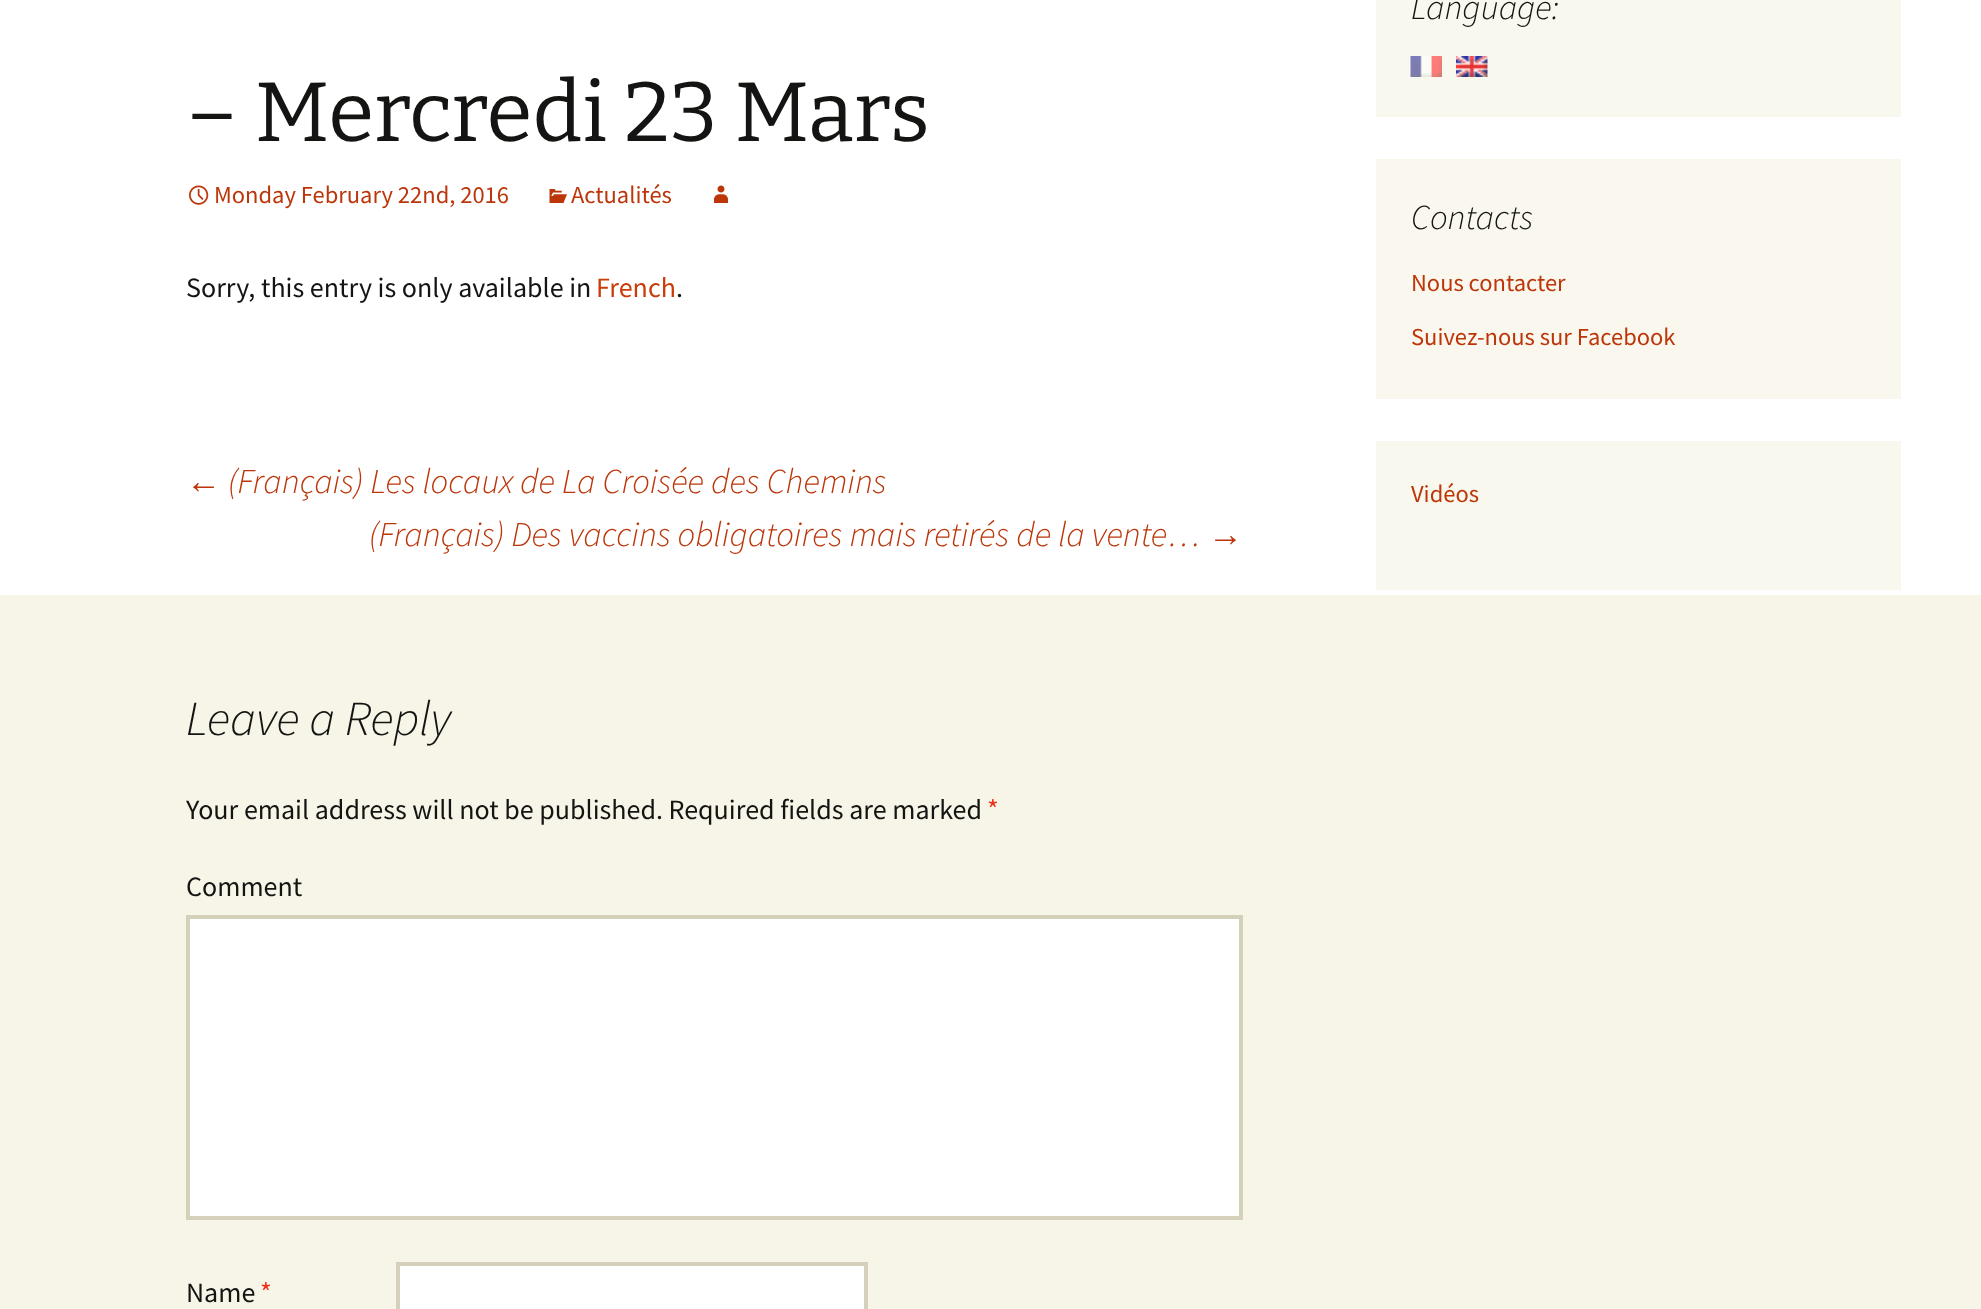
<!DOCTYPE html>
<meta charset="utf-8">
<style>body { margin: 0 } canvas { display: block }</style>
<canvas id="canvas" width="1981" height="1309"></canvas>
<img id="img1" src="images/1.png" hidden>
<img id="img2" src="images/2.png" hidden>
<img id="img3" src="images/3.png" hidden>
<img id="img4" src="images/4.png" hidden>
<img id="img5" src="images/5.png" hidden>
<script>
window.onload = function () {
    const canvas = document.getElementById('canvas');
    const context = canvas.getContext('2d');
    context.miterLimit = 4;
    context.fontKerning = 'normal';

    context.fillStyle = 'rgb(255, 255, 255)';
    context.fillRect(0, 0, 1981, 1309);
    context.drawImage(document.getElementById('img1'), 189, 185, 20, 20);
    context.drawImage(document.getElementById('img2'), 549, 189, 18, 14);
    context.drawImage(document.getElementById('img3'), 714, 185, 14, 18);
    context.fillStyle = 'rgb(247, 245, 231)';
    context.fillRect(0, 595, 1981, 714);
    context.fillStyle = 'rgb(255, 255, 255)';
    context.beginPath();
    context.rect(188, 917, 1053, 301);
    context.fill();
    context.strokeStyle = 'rgb(212, 208, 186)';
    context.lineWidth = 4;
    context.stroke();
    context.beginPath();
    context.rect(398, 1264, 468, 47);
    context.fill();
    context.stroke();
    context.fillStyle = 'rgb(249, 248, 238)';
    context.fillRect(1376, 0, 525, 117);
    context.drawImage(document.getElementById('img4'), 1410, 56, 32, 21);
    context.drawImage(document.getElementById('img5'), 1456, 56, 32, 21);
    context.fillStyle = 'rgb(250, 248, 238)';
    context.fillRect(1376, 159, 525, 240);
    context.fillStyle = 'rgb(249, 248, 238)';
    context.fillRect(1376, 441, 525, 149);
    context.font = '100 84px Bitter';
    context.fillStyle = 'rgb(20, 20, 18)';
    context.fillText('– Mercredi 23 Mars', 186, 141);
    context.font = '24.5px Source Sans Pro';
    context.fillStyle = 'rgb(188, 54, 10)';
    context.fillText('Monday February 22nd, 2016', 214, 203);
    context.fillText('Actualités', 571, 203);
    context.font = '28px Source Sans Pro';
    context.fillStyle = 'rgb(20, 20, 18)';
    context.fillText('Sorry, this entry is only available in', 186, 297);
    context.fillStyle = 'rgb(202, 60, 8)';
    context.fillText('French', 596, 297);
    context.fillStyle = 'rgb(20, 20, 18)';
    context.fillText('.', 676, 297);
    context.font = 'italic 35px Liberation Sans';
    context.fillStyle = 'rgb(188, 54, 10)';
    context.fillText('←', 186, 493);
    context.font = 'italic 300 35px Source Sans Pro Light';
    context.fillText('(Français) Les locaux de La Croisée des Chemins', 228, 493);
    context.fillText('(Français) Des vaccins obligatoires mais retirés de la vente…', 369, 546);
    context.font = 'italic 35px Liberation Sans';
    context.fillText('→', 1208, 546);
    context.font = 'italic 300 49px Source Sans Pro Light';
    context.fillStyle = 'rgb(20, 20, 18)';
    context.fillText('Leave a Reply', 186, 735);
    context.font = '28px Source Sans Pro';
    context.fillText('Your email address will not be published. Required fields are marked', 186, 819);
    context.fillStyle = 'rgb(237, 51, 28)';
    context.fillText('*', 987, 819);
    context.fillStyle = 'rgb(20, 20, 18)';
    context.fillText('Comment', 186, 896);
    context.fillText('Name', 186, 1302);
    context.fillStyle = 'rgb(237, 51, 28)';
    context.fillText('*', 260, 1302);
    context.font = 'italic 300 35px Source Sans Pro Light';
    context.fillStyle = 'rgb(20, 20, 18)';
    context.fillText('Language:', 1411, 19);
    context.fillText('Contacts', 1411, 229);
    context.font = '24.5px Source Sans Pro';
    context.fillStyle = 'rgb(188, 54, 10)';
    context.fillText('Nous contacter', 1411, 291);
    context.fillText('Suivez-nous sur Facebook', 1411, 345);
    context.fillText('Vidéos', 1411, 502);
};
</script>
